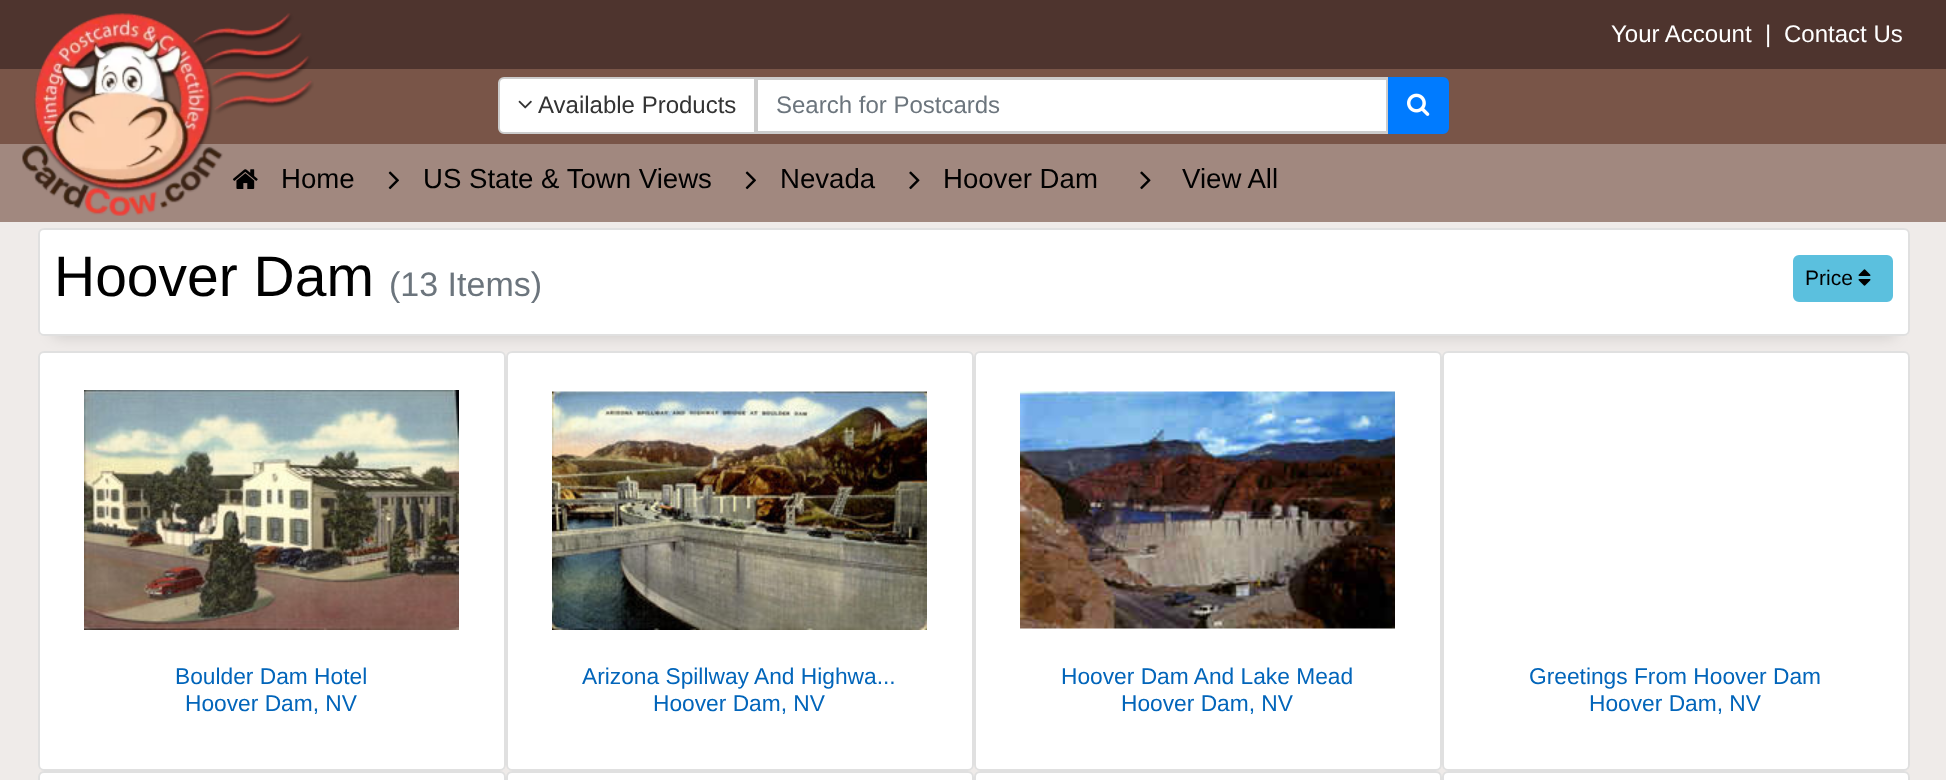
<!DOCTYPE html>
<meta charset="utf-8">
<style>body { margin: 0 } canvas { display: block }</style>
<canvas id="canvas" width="1946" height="780"></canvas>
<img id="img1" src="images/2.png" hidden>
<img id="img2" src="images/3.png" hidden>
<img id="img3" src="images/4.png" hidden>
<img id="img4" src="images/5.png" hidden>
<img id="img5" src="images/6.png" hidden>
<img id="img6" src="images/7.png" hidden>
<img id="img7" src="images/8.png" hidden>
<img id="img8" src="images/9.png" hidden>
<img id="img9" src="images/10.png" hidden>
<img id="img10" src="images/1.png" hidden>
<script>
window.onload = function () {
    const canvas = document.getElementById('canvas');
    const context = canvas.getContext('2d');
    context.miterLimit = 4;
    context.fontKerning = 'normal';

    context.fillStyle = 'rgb(161, 136, 127)';
    context.fillRect(0, 0, 1946, 780);
    context.fillStyle = 'rgb(78, 52, 46)';
    context.fillRect(0, 0, 1946, 69);
    context.fillStyle = 'rgb(121, 85, 72)';
    context.fillRect(0, 69, 1946, 75);
    context.fillStyle = 'rgb(255, 255, 255)';
    context.beginPath();
    context.rect(756.5, 78.5, 631, 54);
    context.fill();
    context.strokeStyle = 'rgb(204, 204, 204)';
    context.lineWidth = 3;
    context.stroke();
    context.beginPath();
    context.roundRect(499, 78, 256, 55, [5, 0, 0, 5]);
    context.fill();
    context.lineWidth = 2;
    context.stroke();
    context.drawImage(document.getElementById('img1'), 518, 100, 14, 9);
    context.fillStyle = 'rgb(0, 123, 255)';
    context.beginPath();
    context.roundRect(1389, 78, 59, 55, [0, 5, 5, 0]);
    context.fill();
    context.strokeStyle = 'rgb(0, 123, 255)';
    context.stroke();
    context.drawImage(document.getElementById('img2'), 1407, 93, 23, 23);
    context.drawImage(document.getElementById('img3'), 232, 169, 26, 20);
    context.drawImage(document.getElementById('img4'), 388, 171, 11, 19);
    context.drawImage(document.getElementById('img4'), 745, 171, 11, 19);
    context.drawImage(document.getElementById('img5'), 909, 171, 11, 19);
    context.drawImage(document.getElementById('img5'), 1140, 171, 11, 19);
    context.fillStyle = 'rgb(239, 235, 233)';
    context.fillRect(0, 222, 1946, 558);
    context.fillStyle = 'rgba(0, 0, 0, 0.15)';
    context.filter = 'blur(7.5px)';
    context.beginPath();
    context.rect(53, 258, 1842, 78);
    context.fill();
    context.filter = 'none';
    context.fillStyle = 'rgb(255, 255, 255)';
    context.beginPath();
    context.roundRect(38, 228, 1872, 108, 6);
    context.fill();
    context.beginPath();
    context.roundRect(39, 229, 1870, 106, 5);
    context.strokeStyle = 'rgba(0, 0, 0, 0.12)';
    context.stroke();
    context.fillStyle = 'rgb(91, 192, 222)';
    context.beginPath();
    context.roundRect(1794, 256, 98, 45, 5);
    context.fill();
    context.strokeStyle = 'rgb(91, 192, 222)';
    context.stroke();
    context.drawImage(document.getElementById('img6'), 1858, 269, 13, 17);
    context.fillStyle = 'rgb(255, 255, 255)';
    context.beginPath();
    context.roundRect(38, 351, 468, 420, 6);
    context.fill();
    context.beginPath();
    context.roundRect(39, 352, 466, 418, 5);
    context.strokeStyle = 'rgba(0, 0, 0, 0.12)';
    context.stroke();
    context.drawImage(document.getElementById('img7'), 84, 390, 375, 240);
    context.beginPath();
    context.roundRect(506, 351, 468, 420, 6);
    context.fill();
    context.beginPath();
    context.roundRect(507, 352, 466, 418, 5);
    context.stroke();
    context.drawImage(document.getElementById('img8'), 552, 391, 375, 239);
    context.beginPath();
    context.roundRect(974, 351, 468, 420, 6);
    context.fill();
    context.beginPath();
    context.roundRect(975, 352, 466, 418, 5);
    context.stroke();
    context.drawImage(document.getElementById('img9'), 1020, 391, 375, 238);
    context.beginPath();
    context.roundRect(1442, 351, 468, 420, 6);
    context.fill();
    context.beginPath();
    context.roundRect(1443, 352, 466, 418, 5);
    context.stroke();
    context.beginPath();
    context.roundRect(38, 771, 468, 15, 6);
    context.fill();
    context.beginPath();
    context.roundRect(39, 772, 466, 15, 5);
    context.stroke();
    context.beginPath();
    context.roundRect(506, 771, 468, 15, 6);
    context.fill();
    context.beginPath();
    context.roundRect(507, 772, 466, 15, 5);
    context.stroke();
    context.beginPath();
    context.roundRect(974, 771, 468, 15, 6);
    context.fill();
    context.beginPath();
    context.roundRect(975, 772, 466, 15, 5);
    context.stroke();
    context.beginPath();
    context.roundRect(1442, 771, 468, 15, 6);
    context.fill();
    context.beginPath();
    context.roundRect(1443, 772, 466, 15, 5);
    context.stroke();
    context.font = '24px Liberation Sans';
    context.fillText('Your Account', 1611, 42);
    context.fillText('|', 1765, 42);
    context.fillText('Contact Us', 1784, 42);
    context.fillStyle = 'rgb(51, 51, 51)';
    context.fillText('Available Products', 538, 113);
    context.fillStyle = 'rgb(108, 117, 125)';
    context.fillText('Search for Postcards', 776, 113);
    context.font = '27.6px Liberation Sans';
    context.fillStyle = 'rgb(0, 0, 0)';
    context.fillText('Home', 281, 188);
    context.drawImage(document.getElementById('img10'), 22, 13, 292, 203);
    context.fillText('US State & Town Views', 423, 188);
    context.fillText('Nevada', 780, 188);
    context.fillText('Hoover Dam', 943, 188);
    context.fillText('View All', 1182, 188);
    context.font = '57px Liberation Sans';
    context.fillText('Hoover Dam', 54, 296);
    context.font = '34px Liberation Sans';
    context.fillStyle = 'rgb(108, 117, 125)';
    context.fillText('(13 Items)', 389, 296);
    context.font = '21px Liberation Sans';
    context.fillStyle = 'rgb(0, 0, 0)';
    context.fillText('Price', 1805, 285);
    context.font = '22.75px Liberation Sans';
    context.fillStyle = 'rgb(2, 101, 186)';
    context.fillText('Boulder Dam Hotel', 175, 684);
    context.fillText('Hoover Dam, NV', 185, 711);
    context.fillText('Arizona Spillway And Highwa...', 582, 684);
    context.fillText('Hoover Dam, NV', 653, 711);
    context.fillText('Hoover Dam And Lake Mead', 1061, 684);
    context.fillText('Hoover Dam, NV', 1121, 711);
    context.fillText('Greetings From Hoover Dam', 1529, 684);
    context.fillText('Hoover Dam, NV', 1589, 711);
};
</script>
